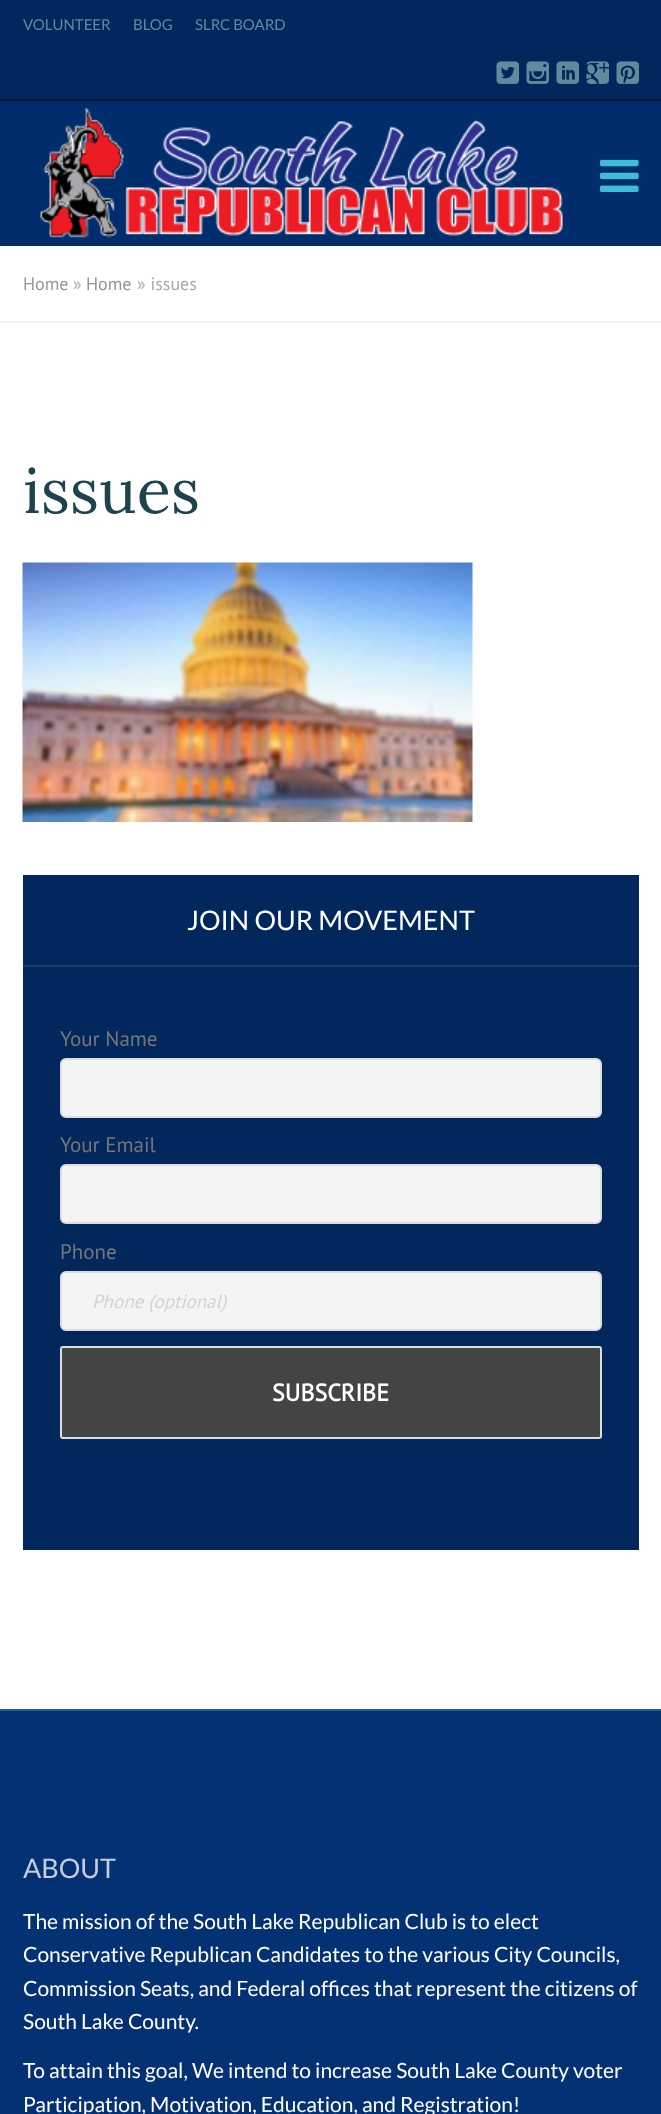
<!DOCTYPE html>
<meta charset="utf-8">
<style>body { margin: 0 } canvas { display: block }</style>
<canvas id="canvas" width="661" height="2114"></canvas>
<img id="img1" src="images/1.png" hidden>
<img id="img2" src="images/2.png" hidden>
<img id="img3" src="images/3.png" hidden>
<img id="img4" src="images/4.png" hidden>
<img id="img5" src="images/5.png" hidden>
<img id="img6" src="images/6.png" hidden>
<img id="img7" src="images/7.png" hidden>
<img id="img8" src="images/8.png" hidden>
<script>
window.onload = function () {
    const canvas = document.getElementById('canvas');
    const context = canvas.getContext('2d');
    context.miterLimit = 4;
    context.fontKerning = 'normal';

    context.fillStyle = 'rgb(255, 255, 255)';
    context.fillRect(0, 0, 661, 2114);
    context.fillStyle = 'rgb(2, 39, 93)';
    context.fillRect(0, 0, 661, 99);
    context.fillStyle = 'rgb(4, 23, 59)';
    context.fillRect(0, 99, 661, 2);
    context.drawImage(document.getElementById('img1'), 496, 61, 23, 23);
    context.drawImage(document.getElementById('img2'), 526, 61, 23, 23);
    context.drawImage(document.getElementById('img3'), 556, 61, 23, 23);
    context.drawImage(document.getElementById('img4'), 586, 61, 23, 23);
    context.drawImage(document.getElementById('img5'), 616, 61, 23, 23);
    context.fillStyle = 'rgb(2, 45, 109)';
    context.fillRect(0, 101, 661, 145);
    context.drawImage(document.getElementById('img6'), 40, 107, 523, 131);
    context.drawImage(document.getElementById('img7'), 600, 159, 39, 33);
    context.fillStyle = 'rgb(242, 242, 243)';
    context.fillRect(0, 321, 661, 2);
    context.drawImage(document.getElementById('img8'), 22, 562, 451, 260);
    context.fillStyle = 'rgb(2, 39, 93)';
    context.fillRect(23, 875, 616, 675);
    context.fillStyle = 'rgb(27, 61, 109)';
    context.fillRect(23, 965, 616, 2);
    context.fillStyle = 'rgb(244, 244, 244)';
    context.beginPath();
    context.roundRect(61, 1059, 540, 58, 5);
    context.fill();
    context.strokeStyle = 'rgb(221, 221, 221)';
    context.lineWidth = 2;
    context.stroke();
    context.beginPath();
    context.roundRect(61, 1165, 540, 58, 5);
    context.fill();
    context.stroke();
    context.beginPath();
    context.roundRect(61, 1272, 540, 58, 5);
    context.fill();
    context.stroke();
    context.fillStyle = 'rgb(68, 68, 68)';
    context.beginPath();
    context.roundRect(61, 1347, 540, 91, 2);
    context.fill();
    context.stroke();
    context.fillStyle = 'rgb(4, 49, 116)';
    context.fillRect(0, 1711, 661, 403);
    context.fillStyle = 'rgb(31, 94, 161)';
    context.fillRect(0, 1709, 661, 2);
    context.font = '15px Lato';
    context.fillStyle = 'rgb(97, 139, 156)';
    context.fillText('VOLUNTEER', 23, 30);
    context.fillText('BLOG', 133, 30);
    context.fillText('SLRC BOARD', 195, 30);
    context.font = '18px PT Sans';
    context.fillStyle = 'rgb(149, 149, 149)';
    context.fillText('Home', 23, 290);
    context.fillStyle = 'rgb(168, 168, 168)';
    context.fillText('»', 73, 290);
    context.fillStyle = 'rgb(149, 149, 149)';
    context.fillText('Home', 86, 290);
    context.fillStyle = 'rgb(168, 168, 168)';
    context.fillText('» issues', 137, 290);
    context.font = '63px Lora';
    context.fillStyle = 'rgb(29, 67, 76)';
    context.fillText('issues', 23, 513);
    context.font = '27px Lato';
    context.fillStyle = 'rgb(255, 255, 255)';
    context.fillText('JOIN OUR MOVEMENT', 187, 930);
    context.font = '21px PT Sans';
    context.fillStyle = 'rgb(119, 119, 119)';
    context.fillText('Your Name', 60, 1046);
    context.fillText('Your Email', 60, 1152);
    context.fillText('Phone', 60, 1259);
    context.font = 'italic 19px PT Sans';
    context.fillStyle = 'rgb(210, 210, 210)';
    context.fillText('Phone (optional)', 92, 1308);
    context.font = 'bold 24px PT Sans';
    context.fillStyle = 'rgb(255, 255, 255)';
    context.fillText('SUBSCRIBE', 272, 1401);
    context.font = '27px Lato';
    context.fillStyle = 'rgb(197, 204, 218)';
    context.fillText('ABOUT', 23, 1878);
    context.font = '21px Lato';
    context.fillStyle = 'rgb(255, 255, 255)';
    context.fillText('The mission of the South Lake Republican Club is to elect', 23, 1929);
    context.fillText('Conservative Republican Candidates to the various City Councils,', 23, 1962);
    context.fillText('Commission Seats, and Federal offices that represent the citizens of', 23, 1996);
    context.fillText('South Lake County.', 23, 2029);
    context.fillText('To attain this goal, We intend to increase South Lake County voter', 23, 2078);
    context.fillText('Participation, Motivation, Education, and Registration!', 23, 2112);
};
</script>
